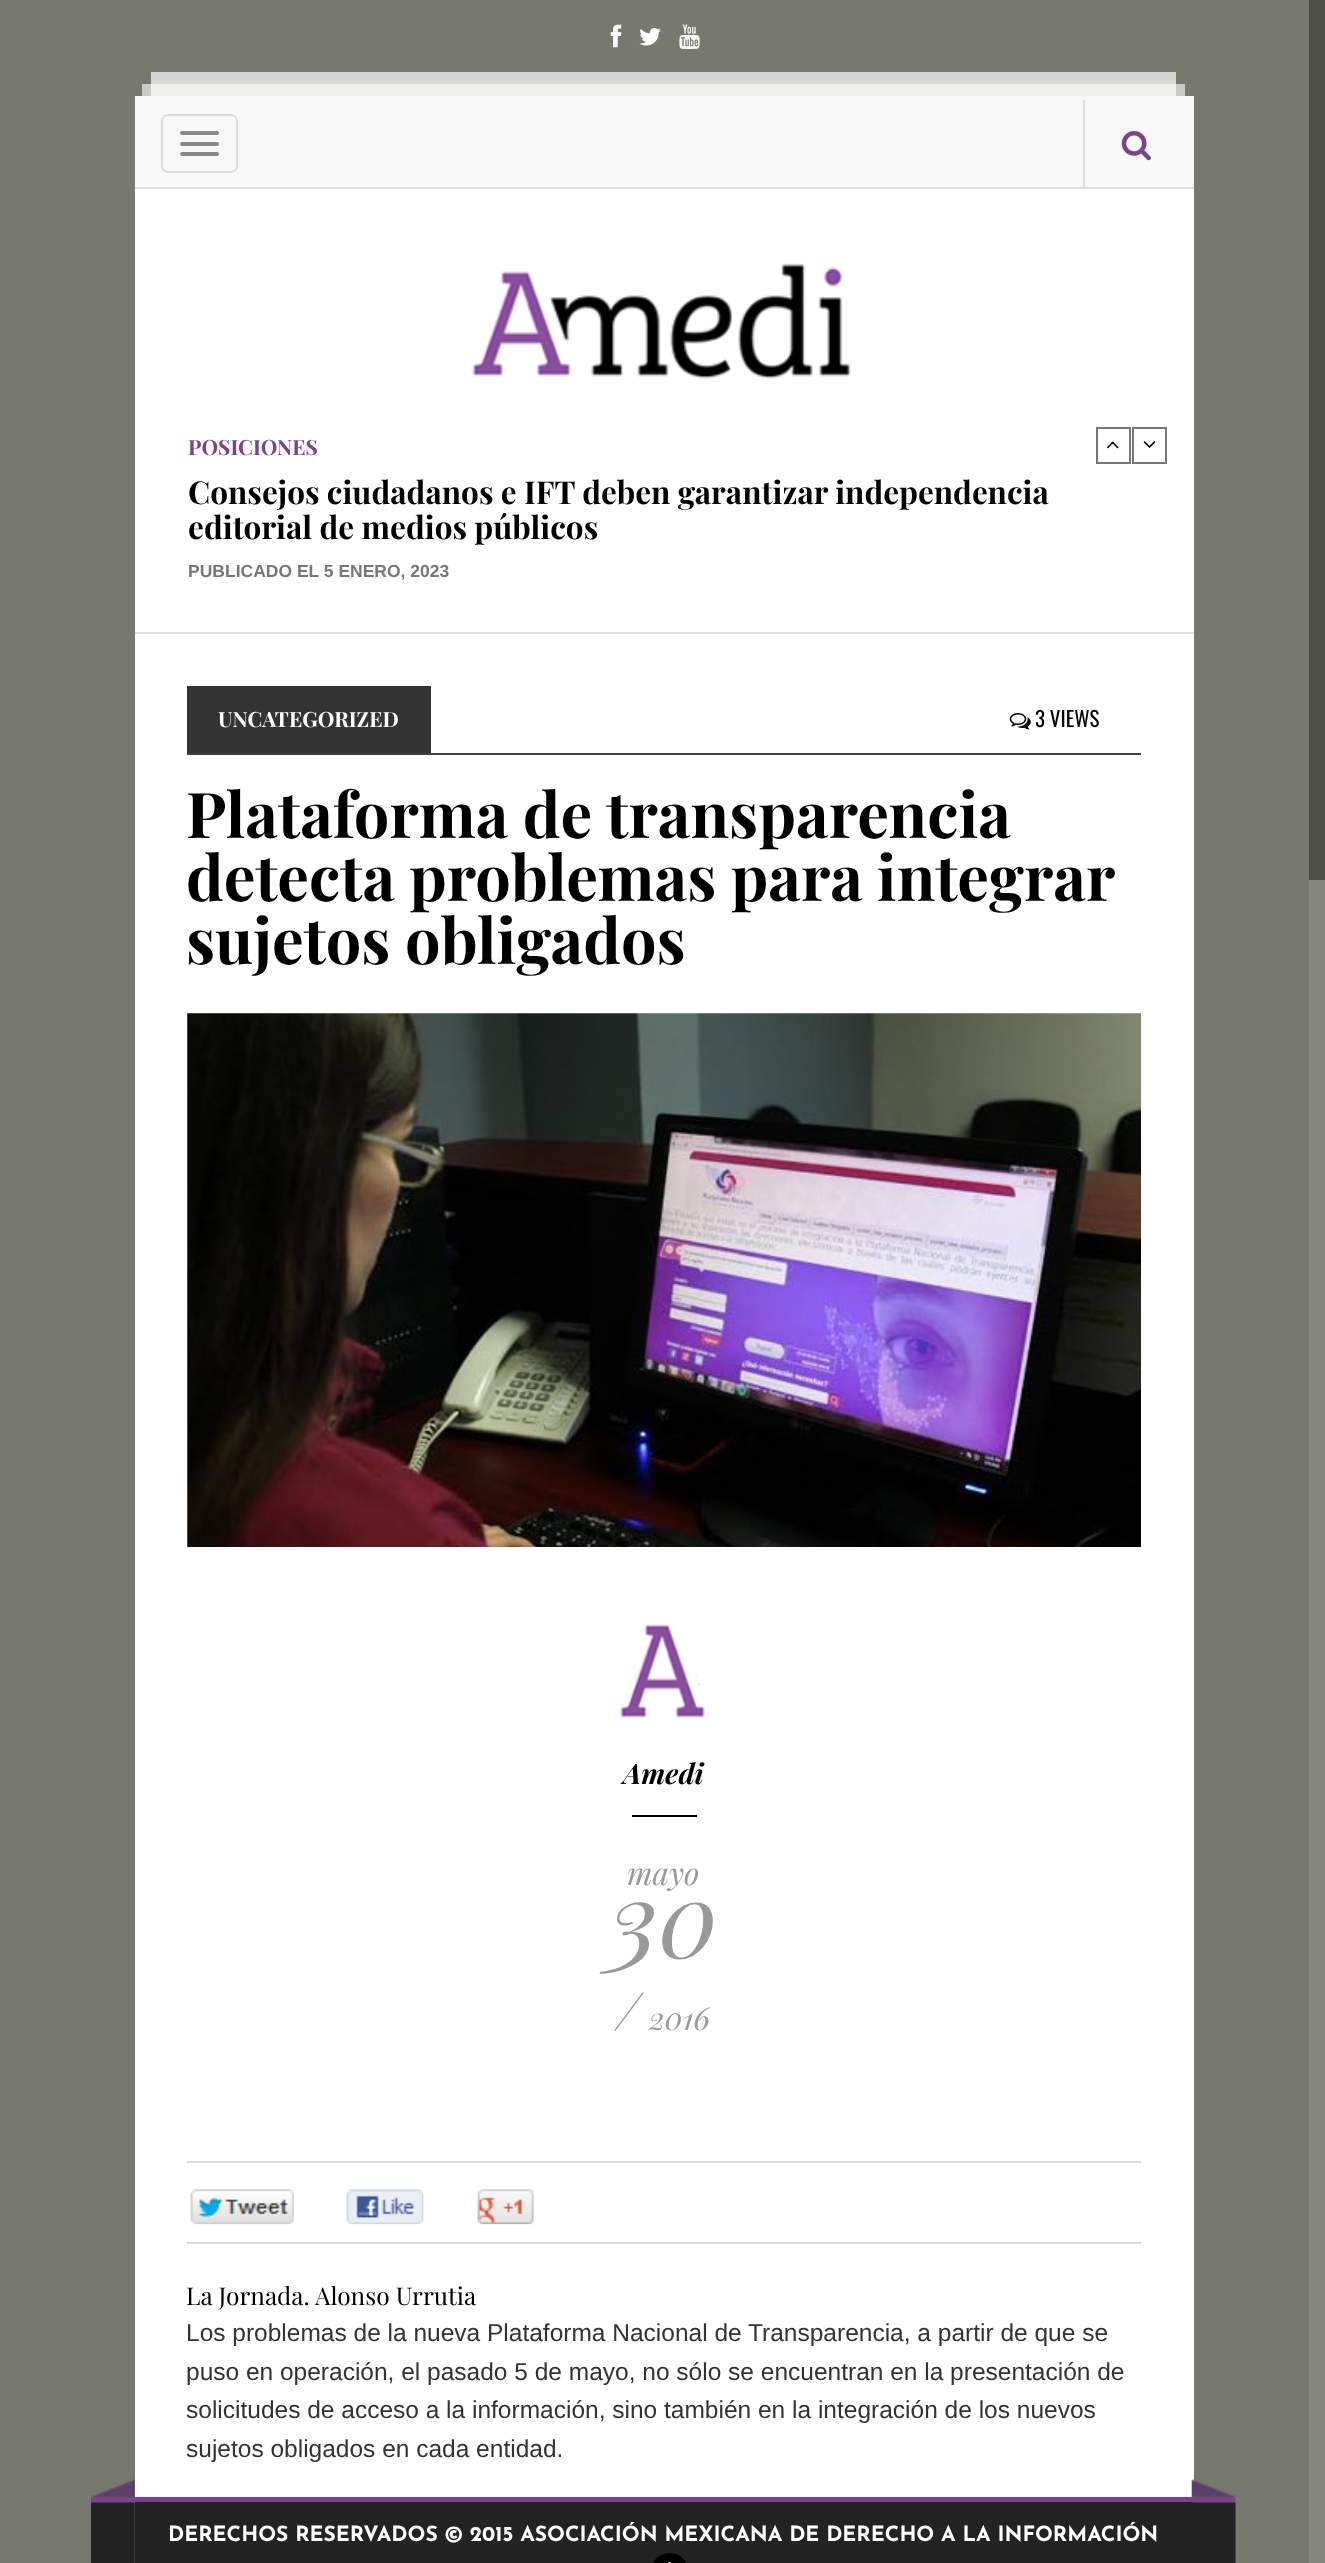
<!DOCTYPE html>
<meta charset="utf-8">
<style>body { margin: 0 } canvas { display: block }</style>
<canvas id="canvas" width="1325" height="2563"></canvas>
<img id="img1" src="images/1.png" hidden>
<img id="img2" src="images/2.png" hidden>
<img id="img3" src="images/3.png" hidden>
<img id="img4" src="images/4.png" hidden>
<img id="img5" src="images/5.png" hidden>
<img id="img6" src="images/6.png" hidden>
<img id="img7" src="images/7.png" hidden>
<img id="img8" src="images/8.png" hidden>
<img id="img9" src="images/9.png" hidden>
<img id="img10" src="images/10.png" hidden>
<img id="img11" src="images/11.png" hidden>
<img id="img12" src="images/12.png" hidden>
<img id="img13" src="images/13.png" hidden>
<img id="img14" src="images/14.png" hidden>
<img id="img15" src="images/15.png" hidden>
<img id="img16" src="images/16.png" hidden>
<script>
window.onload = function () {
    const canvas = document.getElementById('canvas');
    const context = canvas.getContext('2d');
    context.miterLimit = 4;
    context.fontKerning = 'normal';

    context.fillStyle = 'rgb(119, 121, 110)';
    context.fillRect(0, 0, 1325, 2563);
    context.fillStyle = 'rgb(214, 215, 212)';
    context.fillRect(151, 72, 1025, 12);
    context.drawImage(document.getElementById('img1'), 610, 24, 12, 24);
    context.drawImage(document.getElementById('img2'), 639, 28, 22, 18);
    context.drawImage(document.getElementById('img3'), 679, 24, 21, 25);
    context.fillStyle = 'rgb(80, 80, 75)';
    context.fillRect(1309, 0, 16, 880);
    context.fillStyle = 'rgb(133, 134, 125)';
    context.fillRect(1309, 880, 16, 1683);
    context.fillStyle = 'rgb(255, 255, 255)';
    context.fillRect(135, 189, 1059, 2309);
    context.fillStyle = 'rgb(201, 201, 197)';
    context.fillRect(142, 84, 1043, 12);
    context.fillStyle = 'rgb(239, 239, 238)';
    context.fillRect(151, 84, 1025, 12);
    context.fillStyle = 'rgb(248, 248, 248)';
    context.fillRect(135, 96, 1059, 91);
    context.fillStyle = 'rgb(221, 221, 221)';
    context.fillRect(135, 187, 1059, 2);
    context.beginPath();
    context.roundRect(162, 115, 75, 57, 6);
    context.strokeStyle = 'rgb(221, 221, 221)';
    context.lineWidth = 2;
    context.stroke();
    context.fillStyle = 'rgb(136, 136, 136)';
    context.beginPath();
    context.roundRect(180, 131, 39, 4, 2);
    context.fill();
    context.beginPath();
    context.roundRect(180, 142, 39, 4, 2);
    context.fill();
    context.beginPath();
    context.roundRect(180, 152, 39, 4, 2);
    context.fill();
    context.fillStyle = 'rgb(221, 221, 221)';
    context.fillRect(1083, 100, 2, 87);
    context.drawImage(document.getElementById('img4'), 1121, 131, 30, 30);
    context.fillRect(135, 632, 1059, 2);
    context.drawImage(document.getElementById('img5'), 472, 263, 379, 116);
    context.strokeStyle = 'rgb(119, 119, 119)';
    context.strokeRect(1097, 428, 33, 35);
    context.drawImage(document.getElementById('img6'), 1106, 441, 13, 8);
    context.strokeRect(1133, 428, 33, 35);
    context.drawImage(document.getElementById('img7'), 1143, 441, 13, 7);
    context.fillStyle = 'rgb(65, 65, 65)';
    context.fillRect(187, 753, 954, 2);
    context.fillStyle = 'rgb(51, 51, 51)';
    context.fillRect(187, 686, 244, 67);
    context.drawImage(document.getElementById('img8'), 1009, 713, 22, 17);
    context.drawImage(document.getElementById('img9'), 187, 1013, 954, 534);
    context.drawImage(document.getElementById('img10'), 620, 1624, 85, 94);
    context.fillStyle = 'rgb(0, 0, 0)';
    context.fillRect(632, 1815, 65, 2);
    context.fillStyle = 'rgb(219, 219, 219)';
    context.fillRect(187, 2161, 954, 2);
    context.fillRect(187, 2242, 954, 2);
    context.drawImage(document.getElementById('img11'), 190, 2189, 104, 36);
    context.drawImage(document.getElementById('img12'), 346, 2189, 78, 36);
    context.drawImage(document.getElementById('img13'), 477, 2189, 57, 36);
    context.fillStyle = 'rgb(35, 35, 35)';
    context.fillRect(135, 2502, 1057, 61);
    context.fillStyle = 'rgb(122, 67, 140)';
    context.fillRect(135, 2497, 1057, 5);
    context.drawImage(document.getElementById('img14'), 91, 2479, 44, 84);
    context.fillStyle = 'rgb(0, 0, 0)';
    context.beginPath();
    context.moveTo(670, 2553);
    context.bezierCurveTo(680, 2553, 688, 2561, 688, 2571);
    context.bezierCurveTo(688, 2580.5, 680, 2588, 670, 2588);
    context.bezierCurveTo(659.5, 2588, 651, 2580.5, 651, 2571);
    context.bezierCurveTo(651, 2561, 659.5, 2553, 670, 2553);
    context.closePath();
    context.fill();
    context.drawImage(document.getElementById('img15'), 668, 2562, 3, 1);
    context.drawImage(document.getElementById('img16'), 1191, 2479, 45, 84);
    context.font = 'bold 21px Playfair Display';
    context.fillStyle = 'rgb(122, 67, 140)';
    context.fillText('POSICIONES', 188, 455);
    context.font = 'bold 31.5px Playfair Display';
    context.fillStyle = 'rgb(0, 0, 0)';
    context.fillText('Consejos ciudadanos e IFT deben garantizar independencia', 188, 504);
    context.fillText('editorial de medios públicos', 188, 539);
    context.font = 'bold 17.5px Liberation Sans';
    context.fillStyle = 'rgb(119, 119, 119)';
    context.fillText('PUBLICADO EL 5 ENERO, 2023', 188, 577);
    context.font = 'bold 21px Playfair Display';
    context.fillStyle = 'rgb(255, 255, 255)';
    context.fillText('UNCATEGORIZED', 218, 727);
    context.font = '21px Oswald';
    context.fillStyle = 'rgb(0, 0, 0)';
    context.fillText('3 VIEWS', 1035, 727);
    context.font = 'bold 63px Playfair Display';
    context.fillText('Plataforma de transparencia', 186, 838);
    context.wordSpacing = '-0.5px';
    context.fillText('detecta problemas para integrar', 186, 901);
    context.wordSpacing = '0px';
    context.fillText('sujetos obligados', 186, 964);
    context.font = 'italic bold 28px Playfair Display';
    context.fillText('Amedi', 623, 1784);
    context.font = 'italic 31.5px Playfair Display';
    context.fillStyle = 'rgb(153, 153, 153)';
    context.fillText('mayo', 627, 1885);
    context.font = 'italic 105px Playfair Display';
    context.fillText('30', 608, 1958);
    context.font = 'italic 52px Playfair Display';
    context.fillText('/', 616, 2030);
    context.font = 'italic 31.5px Playfair Display';
    context.fillText('2016', 649, 2030);
    context.font = '24.5px Playfair Display';
    context.fillStyle = 'rgb(0, 0, 0)';
    context.fillText('La Jornada. Alonso Urrutia', 186, 2305);
    context.font = '24.5px Liberation Sans';
    context.fillStyle = 'rgb(51, 51, 51)';
    context.fillText('Los problemas de la nueva Plataforma Nacional de Transparencia, a partir de que se', 186, 2341);
    context.fillText('puso en operación, el pasado 5 de mayo, no sólo se encuentran en la presentación de', 186, 2380);
    context.fillText('solicitudes de acceso a la información, sino también en la integración de los nuevos', 186, 2418);
    context.fillText('sujetos obligados en cada entidad.', 186, 2457);
    context.font = 'bold 21px Josefin Sans';
    context.fillStyle = 'rgb(255, 255, 255)';
    context.fillText('DERECHOS RESERVADOS © 2015 ASOCIACIÓN MEXICANA DE DERECHO A LA INFORMACIÓN', 168, 2541);
};
</script>
